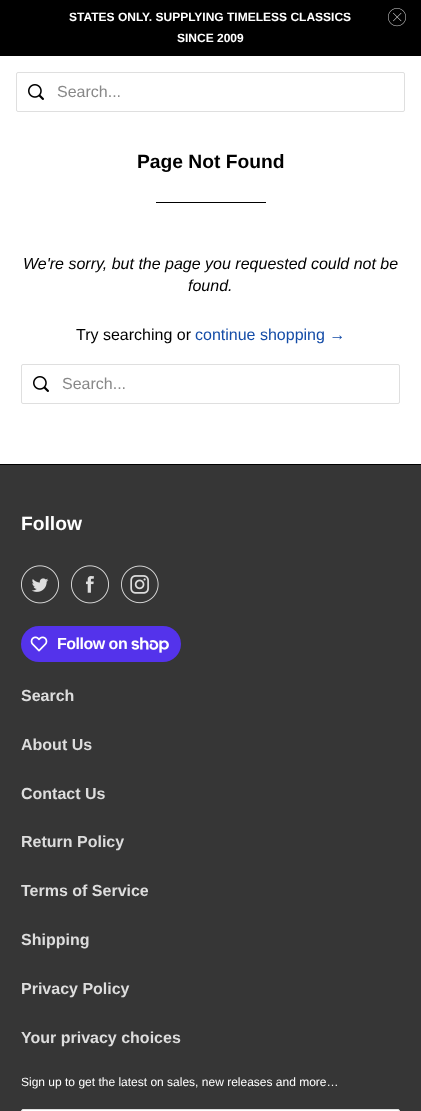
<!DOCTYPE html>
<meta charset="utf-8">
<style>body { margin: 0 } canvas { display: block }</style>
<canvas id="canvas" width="421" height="1111"></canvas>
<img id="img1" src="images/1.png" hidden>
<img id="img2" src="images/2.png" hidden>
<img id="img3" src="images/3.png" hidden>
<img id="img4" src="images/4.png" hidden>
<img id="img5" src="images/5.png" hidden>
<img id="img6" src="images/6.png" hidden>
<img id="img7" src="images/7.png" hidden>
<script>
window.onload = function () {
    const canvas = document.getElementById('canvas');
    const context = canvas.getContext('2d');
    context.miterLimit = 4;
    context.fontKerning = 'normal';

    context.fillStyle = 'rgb(255, 255, 255)';
    context.fillRect(0, 0, 421, 1111);
    context.fillStyle = 'rgb(0, 0, 0)';
    context.fillRect(0, 0, 421, 56);
    context.drawImage(document.getElementById('img1'), 388, 8, 18, 19);
    context.beginPath();
    context.roundRect(16.5, 72.5, 388, 39, 1.5);
    context.strokeStyle = 'rgb(223, 223, 223)';
    context.stroke();
    context.drawImage(document.getElementById('img2'), 28, 84, 16, 16);
    context.fillRect(156, 202, 110, 1);
    context.beginPath();
    context.roundRect(21.5, 364.5, 378, 39, 1.5);
    context.stroke();
    context.drawImage(document.getElementById('img2'), 33, 376, 16, 16);
    context.fillStyle = 'rgb(54, 54, 54)';
    context.fillRect(0, 465, 421, 646);
    context.fillStyle = 'rgb(0, 0, 0)';
    context.fillRect(0, 464, 421, 1);
    context.drawImage(document.getElementById('img3'), 21, 565, 38, 39);
    context.drawImage(document.getElementById('img4'), 71, 565, 38, 39);
    context.drawImage(document.getElementById('img5'), 121, 565, 38, 39);
    context.fillStyle = 'rgb(84, 51, 235)';
    context.beginPath();
    context.roundRect(21, 626, 160, 36, 18);
    context.fill();
    context.drawImage(document.getElementById('img6'), 30, 636, 18, 16);
    context.drawImage(document.getElementById('img7'), 131, 637, 38, 16);
    context.fillStyle = 'rgb(255, 255, 255)';
    context.beginPath();
    context.roundRect(21.5, 1109.5, 378, 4, 1.5);
    context.fill();
    context.stroke();
    context.font = 'bold 12px Liberation Sans';
    context.fillText('STATES ONLY. SUPPLYING TIMELESS CLASSICS', 69, 21);
    context.fillText('SINCE 2009', 177, 42);
    context.font = '16px Liberation Sans';
    context.fillStyle = 'rgb(136, 136, 136)';
    context.fillText('Search...', 57, 97);
    context.font = 'bold 19.25px Liberation Sans';
    context.fillStyle = 'rgb(0, 0, 0)';
    context.fillText('Page Not Found', 137, 168);
    context.font = 'italic 16px Liberation Sans';
    context.fillText('We\'re sorry, but the page you requested could not be', 23, 269);
    context.fillText('found.', 188, 291);
    context.font = '16px Liberation Sans';
    context.fillText('Try searching or', 76, 340);
    context.fillStyle = 'rgb(20, 76, 167)';
    context.fillText('continue shopping →', 195, 340);
    context.fillStyle = 'rgb(136, 136, 136)';
    context.fillText('Search...', 62, 389);
    context.font = 'bold 19.25px Liberation Sans';
    context.fillStyle = 'rgb(255, 255, 255)';
    context.fillText('Follow', 21, 530);
    context.letterSpacing = '-0.5px';
    context.font = 'bold 16px Liberation Sans';
    context.fillText('Follow on', 57, 649);
    context.letterSpacing = '0px';
    context.fillStyle = 'rgb(221, 221, 221)';
    context.fillText('Search', 21, 701);
    context.fillText('About Us', 21, 750);
    context.fillText('Contact Us', 21, 799);
    context.fillText('Return Policy', 21, 847);
    context.fillText('Terms of Service', 21, 896);
    context.fillText('Shipping', 21, 945);
    context.fillText('Privacy Policy', 21, 994);
    context.fillText('Your privacy choices', 21, 1043);
    context.font = '12px Liberation Sans';
    context.fillStyle = 'rgb(255, 255, 255)';
    context.fillText('Sign up to get the latest on sales, new releases and more…', 21, 1086);
};
</script>
